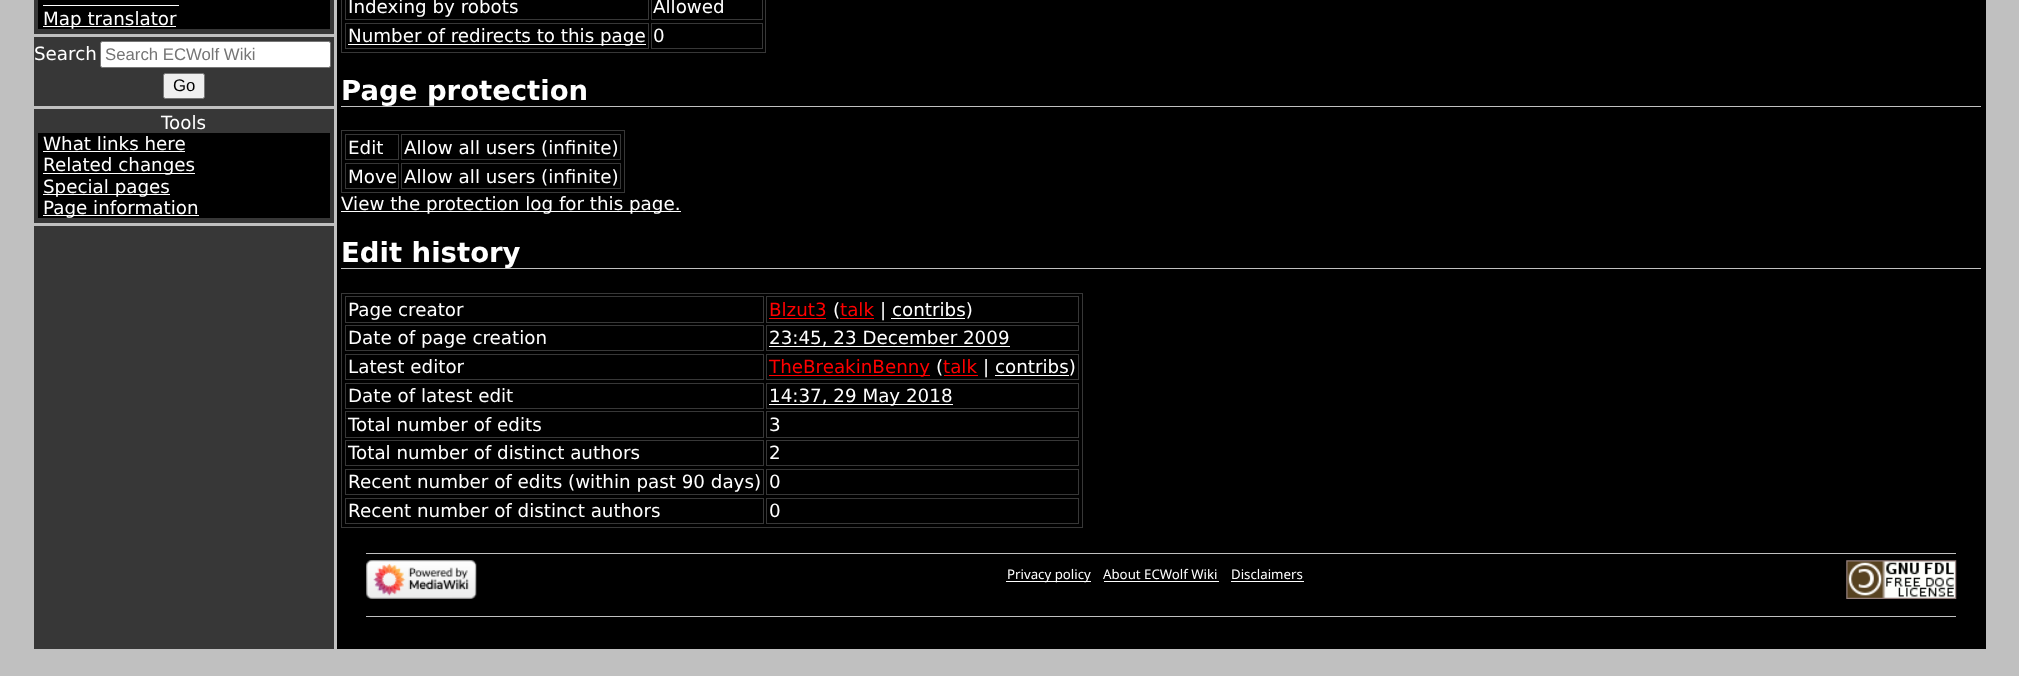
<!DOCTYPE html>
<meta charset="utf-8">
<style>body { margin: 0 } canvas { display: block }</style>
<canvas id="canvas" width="2019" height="676"></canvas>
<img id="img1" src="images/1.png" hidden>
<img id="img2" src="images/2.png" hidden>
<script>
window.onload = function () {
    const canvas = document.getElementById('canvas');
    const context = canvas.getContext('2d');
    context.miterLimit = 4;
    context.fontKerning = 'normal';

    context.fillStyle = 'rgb(192, 192, 192)';
    context.fillRect(0, 0, 2019, 676);
    context.fillStyle = 'rgb(55, 55, 55)';
    context.fillRect(34, 0, 300, 649);
    context.fillStyle = 'rgb(192, 192, 192)';
    context.fillRect(34, 34, 300, 3);
    context.fillStyle = 'rgb(0, 0, 0)';
    context.fillRect(38, 0, 292, 29);
    context.fillStyle = 'rgb(255, 255, 255)';
    context.fillRect(43, 5, 136, 1);
    context.fillRect(43, 26, 133, 1);
    context.fillStyle = 'rgb(192, 192, 192)';
    context.fillRect(34, 106, 300, 3);
    context.fillStyle = 'rgb(255, 255, 255)';
    context.beginPath();
    context.roundRect(100.5, 41.5, 230, 26, 2);
    context.fill();
    context.strokeStyle = 'rgb(118, 118, 118)';
    context.stroke();
    context.fillStyle = 'rgb(239, 239, 239)';
    context.beginPath();
    context.roundRect(163.5, 73.5, 41, 25, 2);
    context.fill();
    context.stroke();
    context.fillStyle = 'rgb(192, 192, 192)';
    context.fillRect(34, 223, 300, 3);
    context.fillStyle = 'rgb(0, 0, 0)';
    context.fillRect(38, 133, 292, 85);
    context.fillStyle = 'rgb(255, 255, 255)';
    context.fillRect(43, 151, 142, 1);
    context.fillRect(43, 173, 152, 1);
    context.fillRect(43, 194, 127, 1);
    context.fillRect(43, 215, 156, 1);
    context.fillStyle = 'rgb(0, 0, 0)';
    context.fillRect(337, 0, 1649, 649);
    context.strokeStyle = 'rgb(55, 55, 55)';
    context.strokeRect(341.5, -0.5, 424, 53);
    context.strokeRect(345.5, -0.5, 303, 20);
    context.strokeRect(651.5, -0.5, 111, 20);
    context.strokeRect(345.5, 23.5, 303, 25);
    context.fillStyle = 'rgb(255, 255, 255)';
    context.fillRect(348, 44, 298, 1);
    context.strokeRect(651.5, 23.5, 111, 25);
    context.fillStyle = 'rgb(192, 192, 192)';
    context.fillRect(341, 106, 1640, 1);
    context.strokeRect(341.5, 130.5, 283, 62);
    context.strokeRect(345.5, 134.5, 53, 25);
    context.strokeRect(401.5, 134.5, 219, 25);
    context.strokeRect(345.5, 163.5, 53, 25);
    context.strokeRect(401.5, 163.5, 219, 25);
    context.fillStyle = 'rgb(255, 255, 255)';
    context.fillRect(341, 211, 340, 1);
    context.fillStyle = 'rgb(192, 192, 192)';
    context.fillRect(341, 268, 1640, 1);
    context.strokeRect(341.5, 293.5, 741, 234);
    context.strokeRect(345.5, 296.5, 418, 26);
    context.strokeRect(766.5, 296.5, 312, 26);
    context.fillStyle = 'rgb(255, 0, 0)';
    context.fillRect(769, 318, 57, 1);
    context.fillRect(840, 318, 34, 1);
    context.fillStyle = 'rgb(255, 255, 255)';
    context.fillRect(891, 318, 74, 1);
    context.strokeRect(345.5, 325.5, 418, 25);
    context.strokeRect(766.5, 325.5, 312, 25);
    context.fillRect(769, 346, 241, 1);
    context.strokeRect(345.5, 354.5, 418, 25);
    context.strokeRect(766.5, 354.5, 312, 25);
    context.fillStyle = 'rgb(255, 0, 0)';
    context.fillRect(769, 375, 161, 1);
    context.fillRect(944, 375, 34, 1);
    context.fillStyle = 'rgb(255, 255, 255)';
    context.fillRect(995, 375, 74, 1);
    context.strokeRect(345.5, 383.5, 418, 25);
    context.strokeRect(766.5, 383.5, 312, 25);
    context.fillRect(769, 404, 184, 1);
    context.strokeRect(345.5, 411.5, 418, 26);
    context.strokeRect(766.5, 411.5, 312, 26);
    context.strokeRect(345.5, 440.5, 418, 25);
    context.strokeRect(766.5, 440.5, 312, 25);
    context.strokeRect(345.5, 469.5, 418, 25);
    context.strokeRect(766.5, 469.5, 312, 25);
    context.strokeRect(345.5, 498.5, 418, 25);
    context.strokeRect(766.5, 498.5, 312, 25);
    context.fillStyle = 'rgb(192, 192, 192)';
    context.fillRect(366, 553, 1590, 1);
    context.fillRect(366, 616, 1590, 1);
    context.drawImage(document.getElementById('img1'), 366, 560, 111, 39);
    context.fillStyle = 'rgb(255, 255, 255)';
    context.fillRect(1006, 581, 85, 1);
    context.fillRect(1104, 581, 115, 1);
    context.fillRect(1231, 581, 73, 1);
    context.drawImage(document.getElementById('img2'), 1846, 560, 111, 39);
    context.font = '18.3px DejaVu Sans';
    context.fillText('Map translator', 43, 25);
    context.fillText('Search', 34, 60);
    context.font = '16.75px Liberation Sans';
    context.fillStyle = 'rgb(117, 117, 117)';
    context.fillText('Search ECWolf Wiki', 105, 60);
    context.fillStyle = 'rgb(0, 0, 0)';
    context.fillText('Go', 173, 91);
    context.font = '18.3px DejaVu Sans';
    context.fillStyle = 'rgb(255, 255, 255)';
    context.fillText('Tools', 161, 129);
    context.fillText('What links here', 43, 150);
    context.fillText('Related changes', 43, 171);
    context.fillText('Special pages', 43, 193);
    context.fillText('Page information', 43, 214);
    context.fillText('Indexing by robots', 348, 13);
    context.fillText('Allowed', 653, 13);
    context.fillText('Number of redirects to this page', 348, 42);
    context.fillText('0', 653, 42);
    context.font = 'bold 27.5px DejaVu Sans';
    context.fillText('Page protection', 341, 100);
    context.font = '18.3px DejaVu Sans';
    context.fillText('Edit', 348, 154);
    context.fillText('Allow all users (infinite)', 404, 154);
    context.fillText('Move', 348, 183);
    context.fillText('Allow all users (infinite)', 404, 183);
    context.fillText('View the protection log for this page.', 341, 210);
    context.font = 'bold 27.5px DejaVu Sans';
    context.fillText('Edit history', 341, 262);
    context.font = '18.3px DejaVu Sans';
    context.fillText('Page creator', 348, 316);
    context.fillStyle = 'rgb(255, 0, 0)';
    context.fillText('Blzut3', 769, 316);
    context.fillStyle = 'rgb(255, 255, 255)';
    context.fillText('(', 833, 316);
    context.fillStyle = 'rgb(255, 0, 0)';
    context.fillText('talk', 840, 316);
    context.fillStyle = 'rgb(255, 255, 255)';
    context.fillText('| contribs)', 880, 316);
    context.fillText('Date of page creation', 348, 344);
    context.fillText('23:45, 23 December 2009', 769, 344);
    context.fillText('Latest editor', 348, 373);
    context.fillStyle = 'rgb(255, 0, 0)';
    context.fillText('TheBreakinBenny', 769, 373);
    context.fillStyle = 'rgb(255, 255, 255)';
    context.fillText('(', 936, 373);
    context.fillStyle = 'rgb(255, 0, 0)';
    context.fillText('talk', 943, 373);
    context.fillStyle = 'rgb(255, 255, 255)';
    context.fillText('| contribs)', 983, 373);
    context.fillText('Date of latest edit', 348, 402);
    context.fillText('14:37, 29 May 2018', 769, 402);
    context.fillText('Total number of edits', 348, 431);
    context.fillText('3', 769, 431);
    context.fillText('Total number of distinct authors', 348, 459);
    context.fillText('2', 769, 459);
    context.fillText('Recent number of edits (within past 90 days)', 348, 488);
    context.fillText('0', 769, 488);
    context.fillText('Recent number of distinct authors', 348, 517);
    context.fillText('0', 769, 517);
    context.font = '13.25px Noto Sans';
    context.fillText('Privacy policy', 1007, 579);
    context.fillText('About ECWolf Wiki', 1103, 579);
    context.fillText('Disclaimers', 1231, 579);
};
</script>
